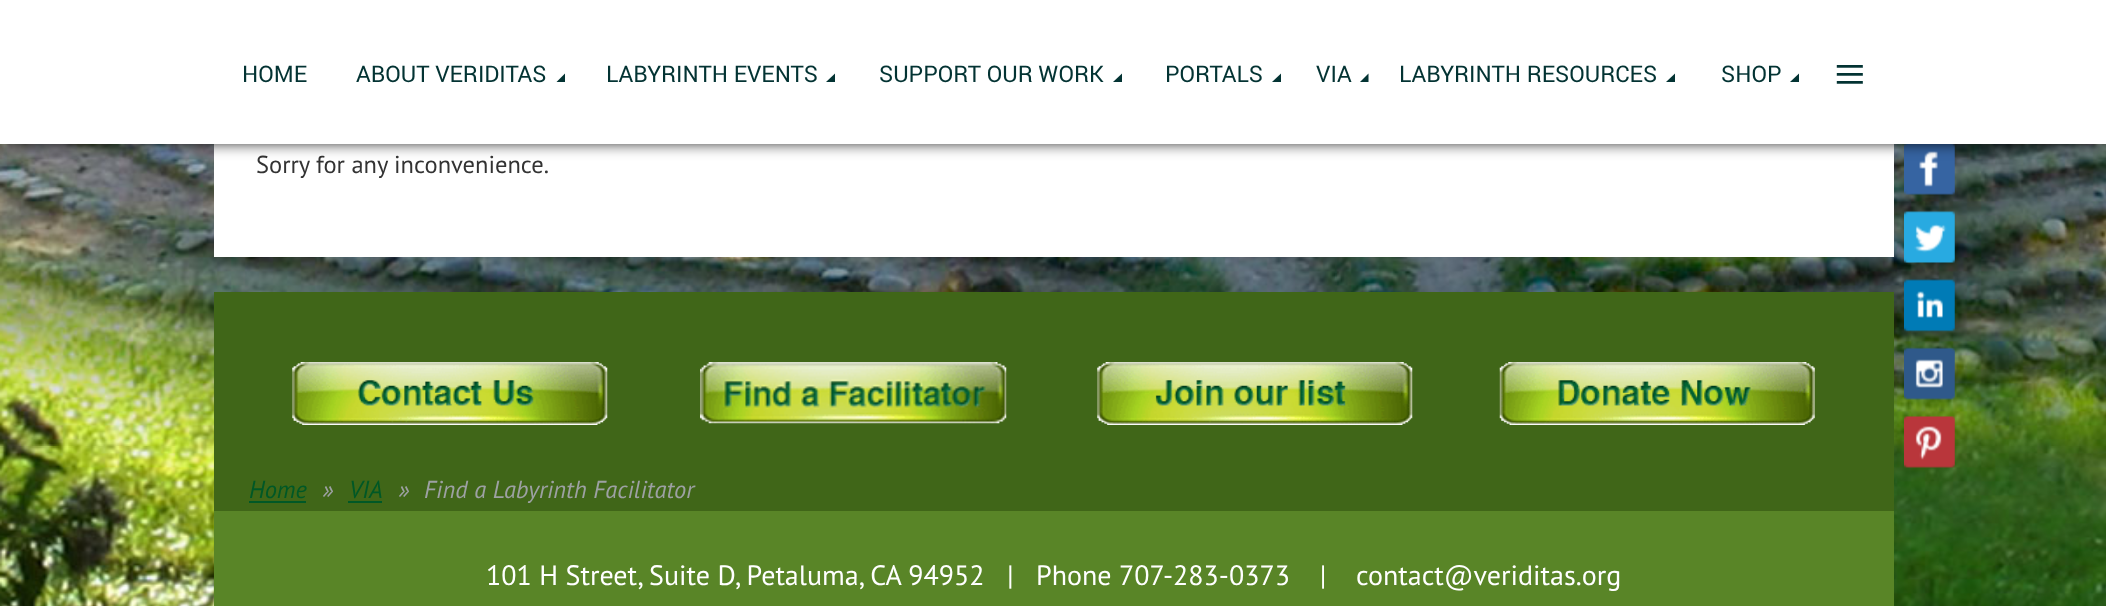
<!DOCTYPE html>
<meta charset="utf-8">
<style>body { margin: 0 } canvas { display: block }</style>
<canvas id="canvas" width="2106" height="606"></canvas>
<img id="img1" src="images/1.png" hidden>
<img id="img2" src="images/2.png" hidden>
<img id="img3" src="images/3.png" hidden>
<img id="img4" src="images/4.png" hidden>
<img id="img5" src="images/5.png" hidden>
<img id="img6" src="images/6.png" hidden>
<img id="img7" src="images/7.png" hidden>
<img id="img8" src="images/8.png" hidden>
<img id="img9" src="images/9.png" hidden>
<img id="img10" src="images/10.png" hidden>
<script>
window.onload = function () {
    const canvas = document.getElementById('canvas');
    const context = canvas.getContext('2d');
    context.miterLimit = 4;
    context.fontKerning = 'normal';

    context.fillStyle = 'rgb(255, 255, 255)';
    context.fillRect(0, 0, 2106, 606);
    context.drawImage(document.getElementById('img1'), 0, 144, 2106, 462);
    context.fillRect(214, 144, 1680, 113);
    context.drawImage(document.getElementById('img2'), 1904, 144, 51, 51);
    context.fillStyle = 'rgb(0, 0, 0)';
    context.filter = 'blur(8px)';
    context.beginPath();
    context.rect(7, 12, 2093, 130);
    context.fill();
    context.filter = 'none';
    context.fillStyle = 'rgb(255, 255, 255)';
    context.fillRect(0, 0, 2106, 144);
    context.fillStyle = 'rgb(3, 51, 51)';
    context.beginPath();
    context.moveTo(565, 82);
    context.lineTo(556.5, 82);
    context.lineTo(565, 73.5);
    context.closePath();
    context.fill();
    context.beginPath();
    context.moveTo(835, 82);
    context.lineTo(826, 82);
    context.lineTo(835, 73.5);
    context.closePath();
    context.fill();
    context.beginPath();
    context.moveTo(1122, 82);
    context.lineTo(1113, 82);
    context.lineTo(1122, 73.5);
    context.closePath();
    context.fill();
    context.beginPath();
    context.moveTo(1281, 82);
    context.lineTo(1272, 82);
    context.lineTo(1281, 73.5);
    context.closePath();
    context.fill();
    context.beginPath();
    context.moveTo(1368.5, 82);
    context.lineTo(1360, 82);
    context.lineTo(1368.5, 73.5);
    context.closePath();
    context.fill();
    context.beginPath();
    context.moveTo(1675, 82);
    context.lineTo(1666, 82);
    context.lineTo(1675, 73.5);
    context.closePath();
    context.fill();
    context.beginPath();
    context.moveTo(1799, 82);
    context.lineTo(1790, 82);
    context.lineTo(1799, 73.5);
    context.closePath();
    context.fill();
    context.drawImage(document.getElementById('img3'), 1904, 211, 51, 52);
    context.drawImage(document.getElementById('img4'), 1904, 279, 51, 53);
    context.drawImage(document.getElementById('img5'), 1904, 347, 51, 53);
    context.drawImage(document.getElementById('img6'), 1904, 416, 51, 52);
    context.fillStyle = 'rgb(64, 102, 24)';
    context.fillRect(214, 292, 1680, 219);
    context.drawImage(document.getElementById('img7'), 292, 362, 316, 63);
    context.drawImage(document.getElementById('img8'), 700, 362, 307, 62);
    context.drawImage(document.getElementById('img9'), 1097, 362, 316, 63);
    context.drawImage(document.getElementById('img10'), 1499, 362, 316, 63);
    context.fillStyle = 'rgb(0, 88, 38)';
    context.fillRect(249, 501, 57, 2);
    context.fillRect(348, 501, 34, 2);
    context.fillStyle = 'rgb(89, 133, 39)';
    context.fillRect(214, 511, 1680, 95);
    context.font = '22.75px Roboto';
    context.fillStyle = 'rgb(3, 51, 51)';
    context.fillText('HOME', 242, 82);
    context.fillText('ABOUT VERIDITAS', 356, 82);
    context.fillText('LABYRINTH EVENTS', 606, 82);
    context.fillText('SUPPORT OUR WORK', 879, 82);
    context.fillText('PORTALS', 1165, 82);
    context.fillText('VIA', 1316, 82);
    context.fillText('LABYRINTH RESOURCES', 1399, 82);
    context.fillText('SHOP', 1721, 82);
    context.font = '56px Liberation Serif';
    context.fillText('≡', 1834, 93);
    context.font = '24.5px PT Sans';
    context.fillStyle = 'rgb(51, 51, 51)';
    context.fillText('Sorry for any inconvenience.', 256, 173);
    context.font = 'italic 24.5px PT Sans';
    context.fillStyle = 'rgb(0, 88, 38)';
    context.fillText('Home', 249, 498);
    context.fillStyle = 'rgb(157, 161, 163)';
    context.fillText('»', 322, 498);
    context.fillStyle = 'rgb(0, 88, 38)';
    context.fillText('VIA', 349, 498);
    context.fillStyle = 'rgb(157, 161, 163)';
    context.fillText('»', 398, 498);
    context.fillText('Find a Labyrinth Facilitator', 424, 498);
    context.font = '28px PT Sans';
    context.fillStyle = 'rgb(255, 255, 255)';
    context.fillText('101 H Street, Suite D, Petaluma, CA 94952   |   Phone 707-283-0373    |', 486, 585);
    context.fillText('contact@veriditas.org', 1356, 585);
};
</script>
